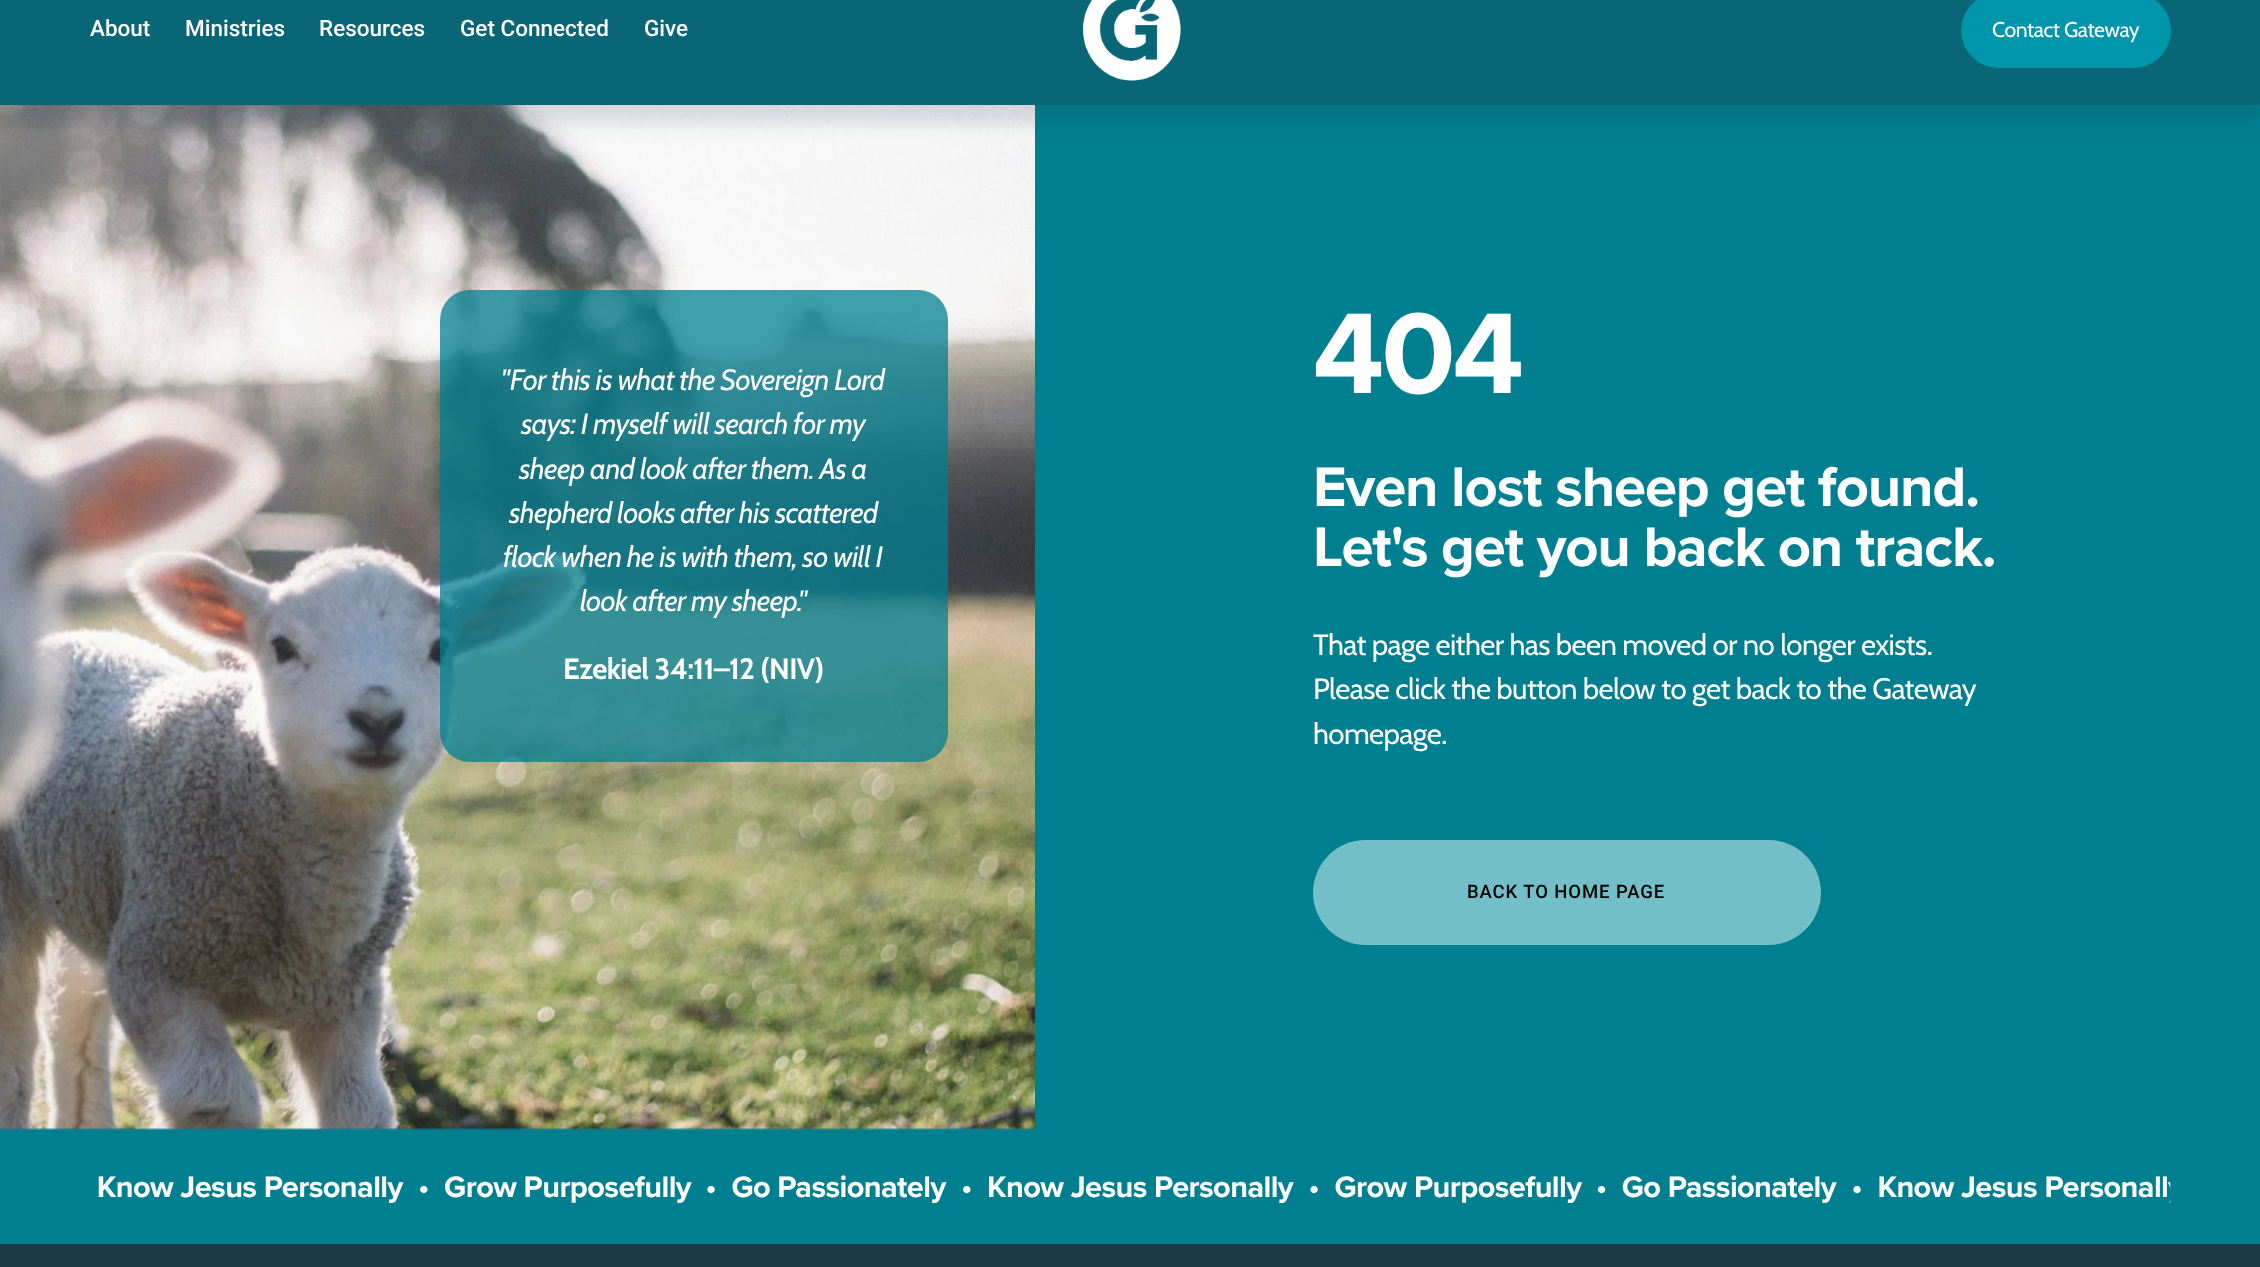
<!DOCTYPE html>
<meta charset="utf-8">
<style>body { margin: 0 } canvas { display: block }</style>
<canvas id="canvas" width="2260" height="1267"></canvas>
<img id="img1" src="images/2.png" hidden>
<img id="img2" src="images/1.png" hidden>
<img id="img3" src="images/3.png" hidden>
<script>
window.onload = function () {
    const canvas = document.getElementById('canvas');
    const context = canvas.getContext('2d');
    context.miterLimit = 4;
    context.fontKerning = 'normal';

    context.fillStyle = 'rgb(0, 127, 145)';
    context.fillRect(0, 0, 2260, 1267);
    context.drawImage(document.getElementById('img1'), 0, 105, 1035, 1025);
    context.fillStyle = 'rgba(27, 56, 69, 0.15)';
    context.filter = 'blur(9px)';
    context.beginPath();
    context.rect(0, -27, 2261, 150);
    context.fill();
    context.filter = 'none';
    context.fillStyle = 'rgb(9, 102, 118)';
    context.fillRect(0, 0, 2260, 105);
    context.drawImage(document.getElementById('img2'), 1082, 0, 99, 81);
    context.fillStyle = 'rgb(0, 149, 171)';
    context.beginPath();
    context.roundRect(1961, -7, 210, 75, 37.5);
    context.fill();
    context.fillStyle = 'rgba(0, 127, 145, 0.74)';
    context.beginPath();
    context.roundRect(440, 290, 508, 472, 30);
    context.fill();
    context.fillStyle = 'rgb(114, 191, 199)';
    context.beginPath();
    context.roundRect(1313, 840, 508, 105, 52.5);
    context.fill();
    context.drawImage(document.getElementById('img3'), 98, 1175, 2073, 28);
    context.fillStyle = 'rgb(27, 56, 69)';
    context.fillRect(0, 1244, 2260, 23);
    context.font = '500 22.5px Roboto';
    context.fillStyle = 'rgb(255, 255, 255)';
    context.fillText('About', 90, 36);
    context.fillText('Ministries', 185, 36);
    context.fillText('Resources', 319, 36);
    context.fillText('Get Connected', 460, 36);
    context.fillText('Give', 644, 36);
    context.letterSpacing = '-0.4px';
    context.font = '21.25px Cabin';
    context.fillText('Contact Gateway', 1992, 37);
    context.letterSpacing = '-2.5px';
    context.font = 'bold 119px Proxima Nova';
    context.fillText('404', 1313, 393);
    context.letterSpacing = '-1.15px';
    context.font = 'bold 57.9px Proxima Nova';
    context.fillText('Even lost sheep get found.', 1313, 506);
    context.fillText('Let\'s get you back on track.', 1313, 566);
    context.letterSpacing = '-0.6px';
    context.font = '29.4px Cabin';
    context.fillText('That page either has been moved or no longer exists.', 1313, 655);
    context.fillText('Please click the button below to get back to the Gateway', 1313, 699);
    context.fillText('homepage.', 1313, 744);
    context.font = 'italic 29.4px Cabin';
    context.fillText('"For this is what the Sovereign Lord', 502, 390);
    context.fillText('says: I myself will search for my', 521, 434);
    context.fillText('sheep and look after them. As a', 519, 479);
    context.fillText('shepherd looks after his scattered', 509, 523);
    context.fillText('flock when he is with them, so will I', 503, 567);
    context.fillText('look after my sheep."', 580, 611);
    context.font = 'bold 29.4px Cabin';
    context.fillText('Ezekiel 34:11–12 (NIV)', 563, 679);
    context.letterSpacing = '0.9px';
    context.font = '500 18.5px Roboto';
    context.fillStyle = 'rgb(0, 0, 0)';
    context.fillText('BACK TO HOME PAGE', 1467, 898);
};
</script>
